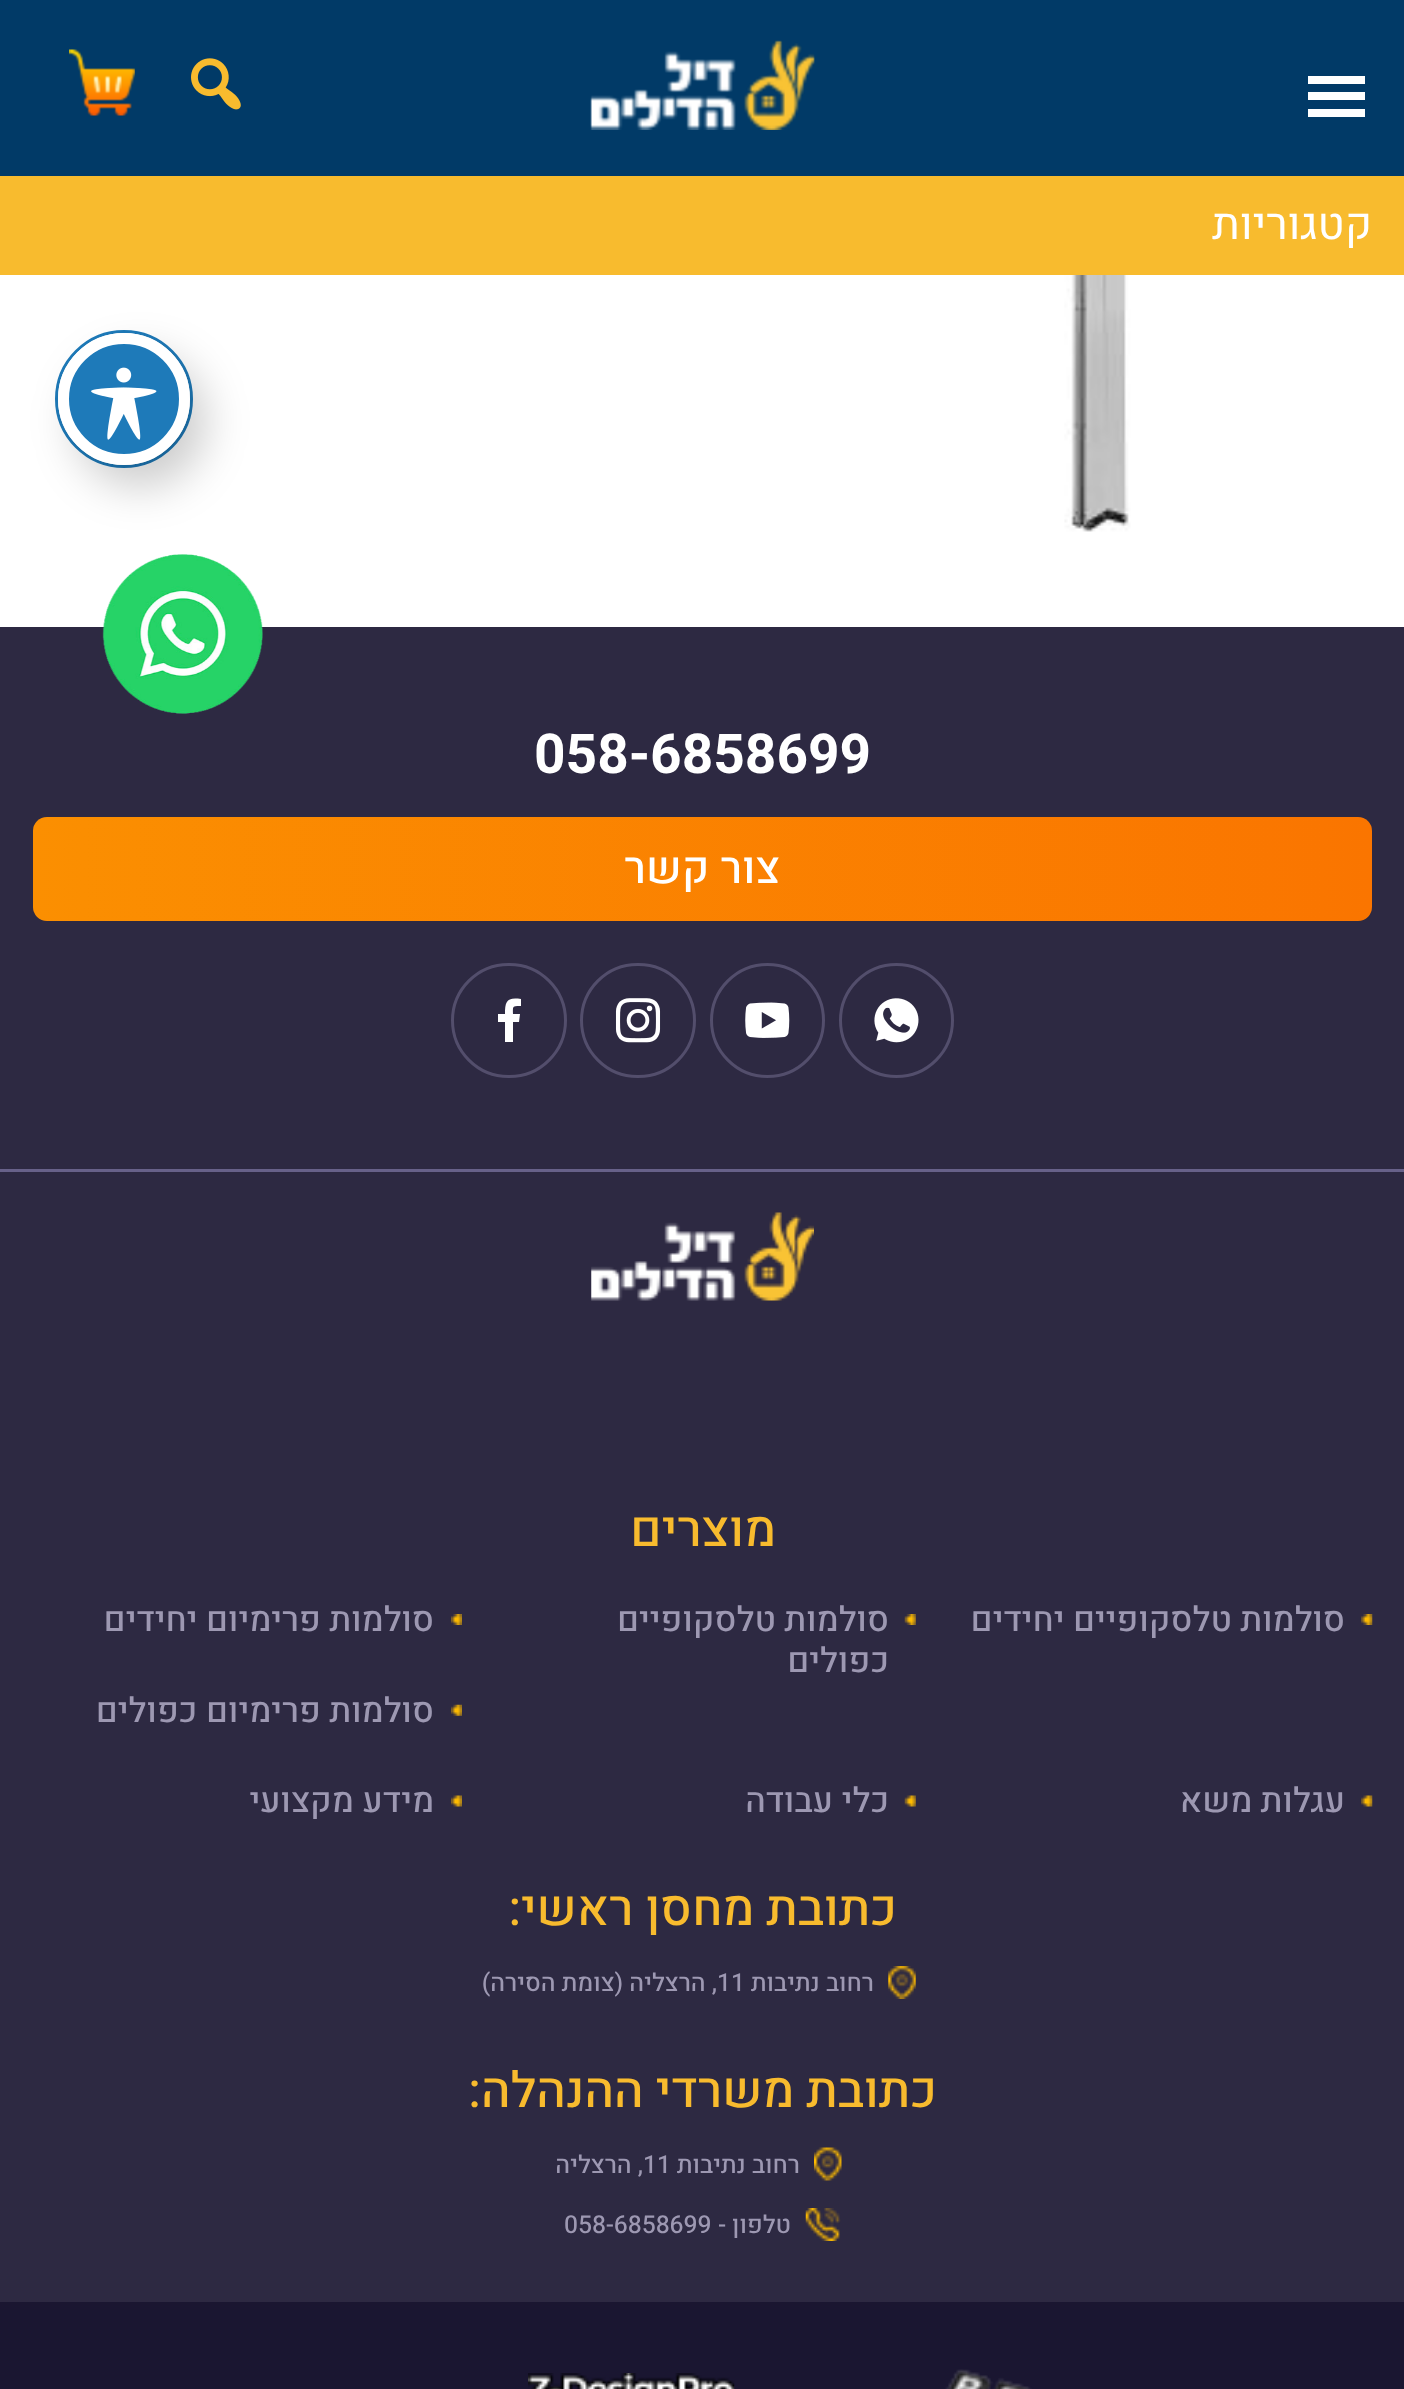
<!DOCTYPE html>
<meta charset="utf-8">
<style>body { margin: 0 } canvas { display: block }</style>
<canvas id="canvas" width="1404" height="2389"></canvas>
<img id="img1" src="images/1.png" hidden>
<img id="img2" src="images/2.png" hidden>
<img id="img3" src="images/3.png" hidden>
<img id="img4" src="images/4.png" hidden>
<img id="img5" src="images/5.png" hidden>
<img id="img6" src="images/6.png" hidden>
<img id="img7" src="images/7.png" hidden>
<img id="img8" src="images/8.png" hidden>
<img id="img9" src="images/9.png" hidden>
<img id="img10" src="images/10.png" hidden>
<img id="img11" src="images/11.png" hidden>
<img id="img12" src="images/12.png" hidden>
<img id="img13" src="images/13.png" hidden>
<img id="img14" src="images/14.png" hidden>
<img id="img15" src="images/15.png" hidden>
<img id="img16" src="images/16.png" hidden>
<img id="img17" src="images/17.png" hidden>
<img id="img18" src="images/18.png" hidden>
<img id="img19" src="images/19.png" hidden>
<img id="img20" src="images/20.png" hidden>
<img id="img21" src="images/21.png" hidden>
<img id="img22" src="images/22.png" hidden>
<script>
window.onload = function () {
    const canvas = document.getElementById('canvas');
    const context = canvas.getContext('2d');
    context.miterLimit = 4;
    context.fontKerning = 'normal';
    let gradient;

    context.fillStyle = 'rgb(255, 255, 255)';
    context.fillRect(0, 0, 1404, 2389);
    context.fillStyle = 'rgb(1, 58, 103)';
    context.fillRect(0, 0, 1404, 176);
    context.fillStyle = 'rgb(255, 255, 255)';
    context.beginPath();
    context.moveTo(1308, 117);
    context.lineTo(1365, 117);
    context.lineTo(1365, 109);
    context.lineTo(1308, 109);
    context.closePath();
    context.moveTo(1308, 76);
    context.lineTo(1308, 84);
    context.lineTo(1365, 84);
    context.lineTo(1365, 76);
    context.closePath();
    context.moveTo(1308, 100);
    context.lineTo(1365, 100);
    context.lineTo(1365, 92);
    context.lineTo(1308, 92);
    context.closePath();
    context.fill();
    context.drawImage(document.getElementById('img1'), 590, 40, 225, 90);
    context.drawImage(document.getElementById('img2'), 191, 58, 50, 52);
    context.drawImage(document.getElementById('img3'), 69, 49, 66, 67);
    context.fillStyle = 'rgb(248, 187, 46)';
    context.fillRect(0, 176, 1404, 99);
    context.drawImage(document.getElementById('img4'), 1064, 275, 67, 257);
    context.beginPath();
    context.arc(124, 399, 67.5, 0, 2 * Math.PI);
    context.strokeStyle = 'rgb(30, 122, 185)';
    context.lineWidth = 3;
    context.stroke();
    context.fillStyle = 'rgba(0, 0, 0, 0.2)';
    context.filter = 'blur(22px)';
    context.beginPath();
    context.roundRect(74, 355, 132, 132, 66);
    context.fill();
    context.filter = 'none';
    context.fillStyle = 'rgb(30, 122, 185)';
    context.beginPath();
    context.arc(124, 399, 60.5, 0, 2 * Math.PI);
    context.fill();
    context.strokeStyle = 'rgb(255, 255, 255)';
    context.lineWidth = 11;
    context.stroke();
    context.drawImage(document.getElementById('img5'), 91, 367, 66, 73);
    context.fillStyle = 'rgb(45, 41, 66)';
    context.fillRect(0, 627, 1404, 1675);
    context.drawImage(document.getElementById('img6'), 102, 554, 161, 160);
    gradient = context.createLinearGradient(1372, 869, 33, 869);
    gradient.addColorStop(0, 'rgb(250, 117, 0)');
    gradient.addColorStop(1, 'rgb(251, 143, 1)');
    context.fillStyle = gradient;
    context.beginPath();
    context.roundRect(33, 817, 1339, 104, 14);
    context.fill();
    context.beginPath();
    context.arc(896.5, 1020.5, 56, 0, 2 * Math.PI);
    context.strokeStyle = 'rgb(83, 78, 108)';
    context.lineWidth = 3;
    context.stroke();
    context.drawImage(document.getElementById('img7'), 874, 998, 45, 45);
    context.beginPath();
    context.arc(767.5, 1020.5, 56, 0, 2 * Math.PI);
    context.stroke();
    context.drawImage(document.getElementById('img8'), 745, 1002, 45, 36);
    context.beginPath();
    context.roundRect(581.5, 964.5, 113, 112, 56);
    context.stroke();
    context.drawImage(document.getElementById('img9'), 615, 998, 46, 45);
    context.beginPath();
    context.roundRect(452.5, 964.5, 113, 112, 56);
    context.stroke();
    context.fillStyle = 'rgb(255, 255, 255)';
    context.beginPath();
    context.moveTo(505, 1042);
    context.lineTo(513, 1042);
    context.lineTo(513, 1022);
    context.lineTo(519, 1022);
    context.lineTo(520, 1014);
    context.lineTo(513, 1014);
    context.bezierCurveTo(513, 1006, 512, 1006, 521, 1006);
    context.lineTo(521, 999);
    context.bezierCurveTo(507, 997, 505, 1001, 505, 1014);
    context.lineTo(498, 1014);
    context.lineTo(498, 1022);
    context.lineTo(505, 1022);
    context.closePath();
    context.fill();
    context.fillStyle = 'rgb(103, 97, 137)';
    context.fillRect(0, 1169, 1404, 3);
    context.drawImage(document.getElementById('img10'), 591, 1212, 223, 89);
    context.drawImage(document.getElementById('img11'), 1361, 1614, 12, 11);
    context.drawImage(document.getElementById('img12'), 904, 1614, 12, 11);
    context.drawImage(document.getElementById('img13'), 451, 1614, 11, 11);
    context.drawImage(document.getElementById('img14'), 451, 1704, 11, 12);
    context.drawImage(document.getElementById('img15'), 1361, 1795, 12, 12);
    context.drawImage(document.getElementById('img16'), 904, 1795, 12, 12);
    context.drawImage(document.getElementById('img17'), 451, 1795, 11, 12);
    context.drawImage(document.getElementById('img18'), 888, 1966, 28, 33);
    context.drawImage(document.getElementById('img19'), 814, 2147, 28, 34);
    context.drawImage(document.getElementById('img20'), 805, 2208, 36, 33);
    context.fillStyle = 'rgb(26, 22, 49)';
    context.fillRect(0, 2302, 1404, 87);
    context.drawImage(document.getElementById('img21'), 945, 2369, 87, 20);
    context.drawImage(document.getElementById('img22'), 528, 2373, 207, 16);
    context.direction = 'rtl';
    context.font = '44px Heebo';
    context.fillStyle = 'rgb(255, 255, 255)';
    context.fillText('קטגוריות', 1372, 239);
    context.direction = 'ltr';
    context.font = 'bold 55px Heebo';
    context.fillText('058-6858699', 534, 773);
    context.direction = 'rtl';
    context.font = '500 44px Heebo';
    context.fillText('צור קשר', 780, 883);
    context.font = '500 49.5px Heebo';
    context.fillStyle = 'rgb(248, 187, 46)';
    context.fillText('מוצרים', 776, 1546);
    context.font = '500 34.4px Heebo';
    context.fillStyle = 'rgb(157, 152, 178)';
    context.fillText('סולמות טלסקופיים יחידים', 1345, 1631);
    context.fillText('סולמות טלסקופיים', 889, 1631);
    context.fillText('כפולים', 889, 1672);
    context.fillText('סולמות פרימיום יחידים', 434, 1631);
    context.fillText('סולמות פרימיום כפולים', 434, 1722);
    context.fillText('עגלות משא', 1345, 1812);
    context.fillText('כלי עבודה', 889, 1812);
    context.fillText('מידע מקצועי', 434, 1812);
    context.font = '500 49.5px Heebo';
    context.fillStyle = 'rgb(248, 187, 46)';
    context.fillText('כתובת מחסן ראשי:', 897, 1925);
    context.font = '500 24.75px Heebo';
    context.fillStyle = 'rgb(157, 152, 178)';
    context.fillText('רחוב נתיבות', 874, 1991);
    context.direction = 'ltr';
    context.fillText('11', 717, 1991);
    context.direction = 'rtl';
    context.fillText(', הרצליה (צומת הסירה)', 717, 1991);
    context.font = '500 49.5px Heebo';
    context.fillStyle = 'rgb(248, 187, 46)';
    context.fillText('כתובת משרדי ההנהלה:', 937, 2107);
    context.font = '500 24.75px Heebo';
    context.fillStyle = 'rgb(157, 152, 178)';
    context.fillText('רחוב נתיבות', 800, 2173);
    context.direction = 'ltr';
    context.fillText('11', 643, 2173);
    context.direction = 'rtl';
    context.fillText(', הרצליה', 643, 2173);
    context.fillText('טלפון -', 791, 2233);
    context.direction = 'ltr';
    context.fillText('058-6858699', 564, 2233);
};
</script>
